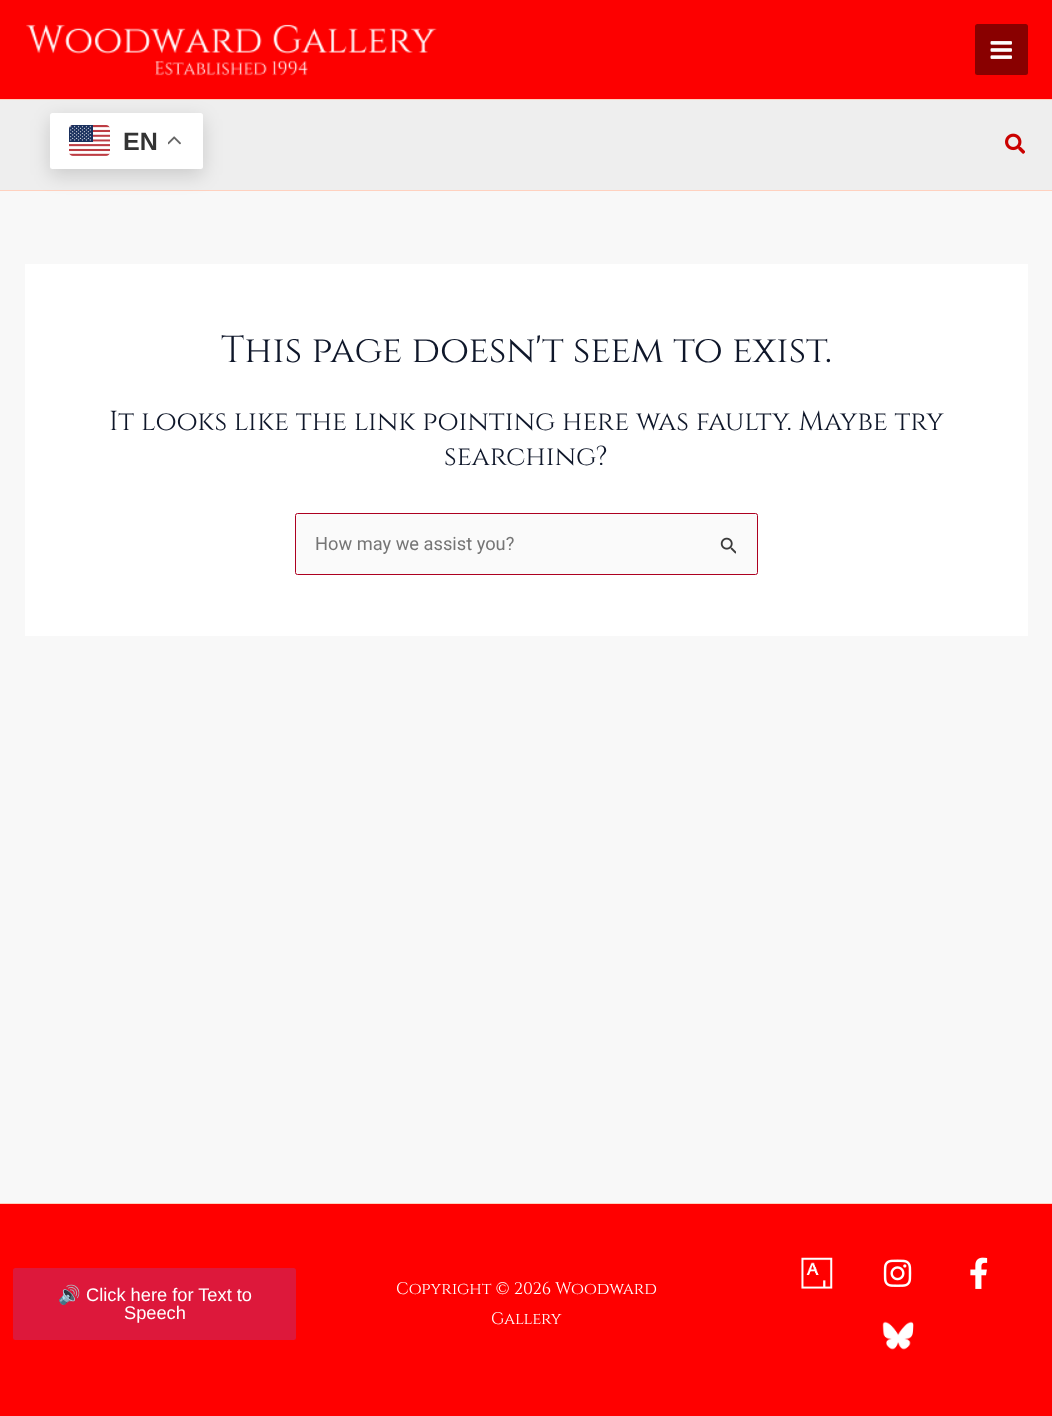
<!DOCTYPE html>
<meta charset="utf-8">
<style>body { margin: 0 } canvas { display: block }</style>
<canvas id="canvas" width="1052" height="1416"></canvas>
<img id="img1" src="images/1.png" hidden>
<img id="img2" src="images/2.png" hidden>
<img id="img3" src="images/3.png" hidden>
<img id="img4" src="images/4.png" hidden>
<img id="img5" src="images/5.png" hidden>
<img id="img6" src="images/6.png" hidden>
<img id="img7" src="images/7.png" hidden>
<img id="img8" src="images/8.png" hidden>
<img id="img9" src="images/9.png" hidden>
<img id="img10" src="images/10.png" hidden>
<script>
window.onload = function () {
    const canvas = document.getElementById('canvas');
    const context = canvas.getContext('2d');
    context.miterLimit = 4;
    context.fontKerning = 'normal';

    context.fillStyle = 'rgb(248, 248, 248)';
    context.fillRect(0, 0, 1052, 1416);
    context.fillStyle = 'rgb(238, 238, 238)';
    context.fillRect(0, 100, 1052, 90);
    context.fillStyle = 'rgb(255, 209, 191)';
    context.fillRect(0, 190, 1052, 1);
    context.fillStyle = 'rgba(0, 0, 0, 0.15)';
    context.filter = 'blur(9.5px)';
    context.beginPath();
    context.roundRect(50, 119, 153, 56, 2.5);
    context.fill();
    context.filter = 'none';
    context.fillStyle = 'rgb(253, 0, 0)';
    context.fillRect(0, 0, 1052, 99);
    context.fillStyle = 'rgb(255, 209, 191)';
    context.fillRect(0, 99, 1052, 1);
    context.drawImage(document.getElementById('img1'), 26, 24, 411, 52);
    context.fillStyle = 'rgb(137, 0, 0)';
    context.beginPath();
    context.roundRect(975, 24, 53, 51, 2.5);
    context.fill();
    context.drawImage(document.getElementById('img2'), 990, 41, 22, 18);
    context.fillStyle = 'rgb(255, 255, 255)';
    context.beginPath();
    context.roundRect(50, 113, 153, 56, 2.5);
    context.fill();
    context.drawImage(document.getElementById('img3'), 69, 125, 41, 31);
    context.drawImage(document.getElementById('img4'), 168, 136, 13, 9);
    context.drawImage(document.getElementById('img5'), 1005, 133, 20, 21);
    context.fillRect(25, 264, 1003, 372);
    context.fillStyle = 'rgb(250, 250, 250)';
    context.beginPath();
    context.roundRect(295.5, 513.5, 462, 61, 2);
    context.fill();
    context.strokeStyle = 'rgb(173, 0, 32)';
    context.stroke();
    context.drawImage(document.getElementById('img6'), 720, 537, 16, 17);
    context.fillStyle = 'rgb(255, 0, 0)';
    context.fillRect(0, 1204, 1052, 212);
    context.fillStyle = 'rgb(255, 209, 191)';
    context.fillRect(0, 1203, 1052, 1);
    context.fillStyle = 'rgb(221, 24, 59)';
    context.beginPath();
    context.roundRect(13, 1268, 283, 72, 2.5);
    context.fill();
    context.drawImage(document.getElementById('img7'), 801, 1257, 32, 32);
    context.drawImage(document.getElementById('img8'), 883, 1259, 29, 28);
    context.drawImage(document.getElementById('img9'), 970, 1257, 18, 32);
    context.drawImage(document.getElementById('img10'), 882, 1321, 32, 29);
    context.font = 'bold 25px Liberation Sans';
    context.fillStyle = 'rgb(51, 51, 51)';
    context.fillText('EN', 123, 150);
    context.font = '37.5px Cinzel';
    context.fillStyle = 'rgb(15, 23, 42)';
    context.fillText('This page doesn\'t seem to exist.', 221, 362);
    context.font = '27.35px Cinzel';
    context.fillText('It looks like the link pointing here was faulty. Maybe try', 109, 430);
    context.fillText('searching?', 444, 465);
    context.font = '18.25px Roboto';
    context.fillStyle = 'rgb(117, 117, 117)';
    context.fillText('How may we assist you?', 315, 550);
    context.font = '18.25px Noto Color Emoji';
    context.fillStyle = 'rgb(255, 255, 255)';
    context.fillText('🔊', 58, 1301);
    context.font = '18.25px Liberation Sans';
    context.fillText('Click here for Text to', 86, 1301);
    context.fillText('Speech', 124, 1319);
    context.font = '16.7px Cinzel';
    context.fillText('Copyright © 2026 Woodward', 396, 1294);
    context.fillText('Gallery', 491, 1324);
};
</script>
